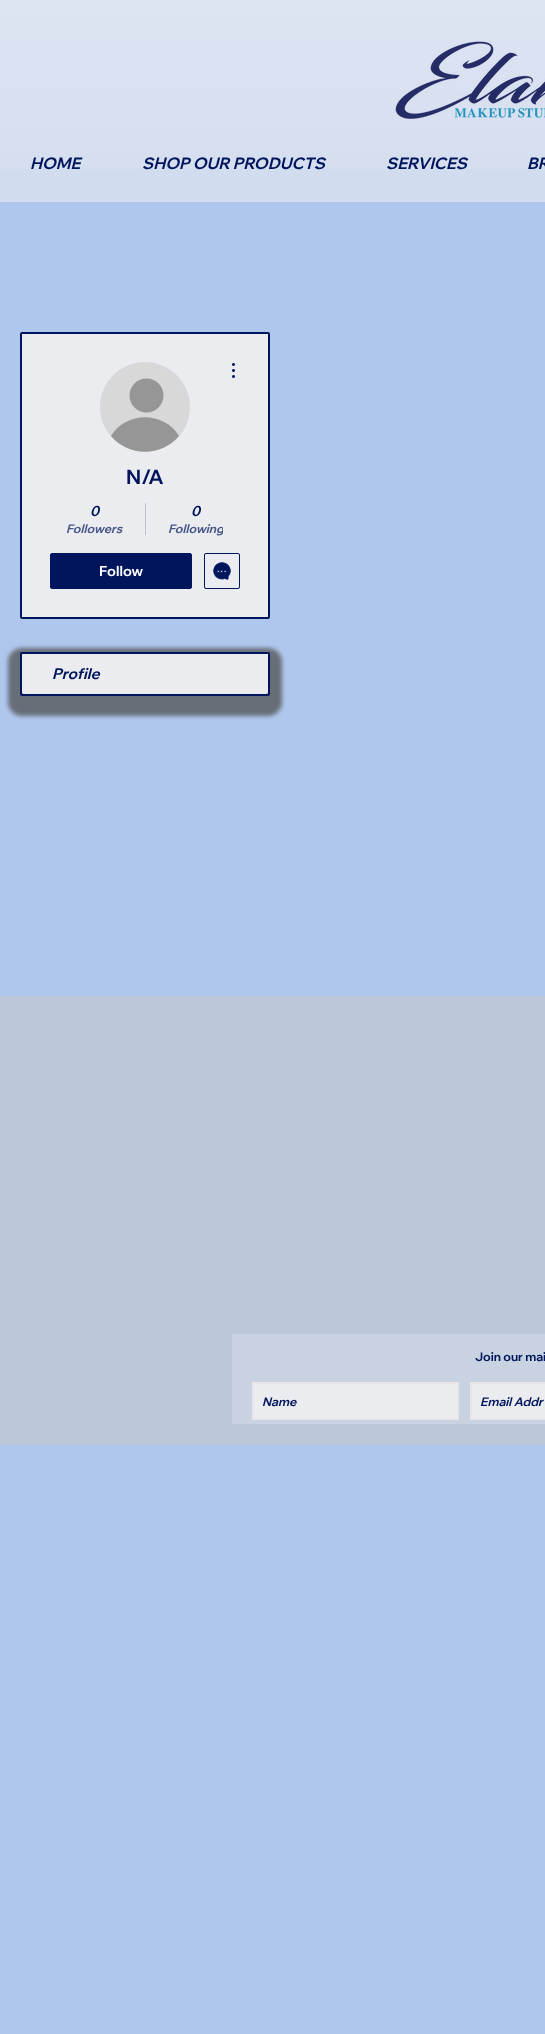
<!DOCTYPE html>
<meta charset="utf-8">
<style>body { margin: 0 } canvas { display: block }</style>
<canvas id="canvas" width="545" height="2034"></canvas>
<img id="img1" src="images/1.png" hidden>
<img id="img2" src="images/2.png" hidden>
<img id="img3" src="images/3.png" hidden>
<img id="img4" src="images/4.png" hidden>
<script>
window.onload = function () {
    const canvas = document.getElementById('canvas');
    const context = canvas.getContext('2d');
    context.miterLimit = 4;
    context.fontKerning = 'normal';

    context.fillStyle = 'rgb(176, 199, 237)';
    context.fillRect(0, 0, 545, 2034);
    context.fillStyle = 'rgb(210, 220, 239)';
    context.fillRect(0, 0, 545, 202);
    context.drawImage(document.getElementById('img1'), 0, 0, 545, 169);
    context.drawImage(document.getElementById('img2'), 395, 41, 150, 78);
    context.fillStyle = 'rgb(235, 236, 240)';
    context.beginPath();
    context.roundRect(21, 333, 248, 285, 1);
    context.fill();
    context.strokeStyle = 'rgb(1, 21, 92)';
    context.lineWidth = 2;
    context.stroke();
    context.fillStyle = 'rgb(216, 216, 216)';
    context.beginPath();
    context.arc(145, 407, 45, 0, 2 * Math.PI);
    context.fill();
    context.fillStyle = 'rgb(150, 150, 150)';
    context.beginPath();
    context.arc(146.5, 395.5, 17, 0, 2 * Math.PI);
    context.fill();
    context.beginPath();
    context.moveTo(179, 436);
    context.bezierCurveTo(161, 457, 129, 457, 111, 436);
    context.bezierCurveTo(126, 411, 164, 411, 179, 436);
    context.closePath();
    context.fill();
    context.drawImage(document.getElementById('img3'), 232, 363, 3, 15);
    context.fillStyle = 'rgb(188, 193, 210)';
    context.fillRect(145, 503, 1, 32);
    context.fillStyle = 'rgb(1, 21, 92)';
    context.beginPath();
    context.roundRect(50.5, 553.5, 141, 35, 1.5);
    context.fill();
    context.lineWidth = 1;
    context.stroke();
    context.beginPath();
    context.roundRect(204.5, 553.5, 35, 35, 1.5);
    context.stroke();
    context.drawImage(document.getElementById('img4'), 213, 562, 18, 18);
    context.fillStyle = 'rgba(77, 77, 77, 0.73)';
    context.filter = 'blur(2px)';
    context.beginPath();
    context.roundRect(8, 648, 274, 68, 14);
    context.fill();
    context.filter = 'none';
    context.beginPath();
    context.roundRect(21, 653, 248, 42, 1);
    context.lineWidth = 2;
    context.stroke();
    context.fillStyle = 'rgb(235, 236, 240)';
    context.beginPath();
    context.roundRect(22, 654, 246, 40, [0, 0, 2, 2]);
    context.fill();
    context.fillStyle = 'rgb(188, 199, 218)';
    context.fillRect(0, 996, 545, 449);
    context.fillStyle = 'rgb(201, 210, 225)';
    context.fillRect(232, 1334, 313, 90);
    context.fillStyle = 'rgb(235, 236, 240)';
    context.beginPath();
    context.rect(253, 1383, 205, 36);
    context.fill();
    context.strokeStyle = 'rgb(232, 230, 230)';
    context.stroke();
    context.beginPath();
    context.rect(471, 1383, 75, 36);
    context.fill();
    context.stroke();
    context.font = 'italic bold 16px Wix Madefor Display';
    context.fillStyle = 'rgb(1, 21, 92)';
    context.fillText('HOME', 30, 169);
    context.fillText('SHOP OUR PRODUCTS', 142, 169);
    context.fillText('SERVICES', 386, 169);
    context.fillText('BR', 527, 169);
    context.font = 'bold 20px Wix Madefor Display';
    context.fillText('N/A', 126, 484);
    context.font = 'italic bold 14px "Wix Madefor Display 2"';
    context.fillText('0', 90, 516);
    context.font = 'italic bold 12px "Wix Madefor Display 2"';
    context.fillStyle = 'rgb(71, 86, 136)';
    context.fillText('Followers', 66, 533);
    context.font = 'italic bold 14px "Wix Madefor Display 2"';
    context.fillStyle = 'rgb(1, 21, 92)';
    context.fillText('0', 191, 516);
    context.save();
    context.beginPath();
    context.rect(168, 521, 55, 16);
    context.clip();
    context.font = 'italic bold 12px "Wix Madefor Display 2"';
    context.fillStyle = 'rgb(71, 86, 136)';
    context.fillText('Following', 168, 533);
    context.restore();
    context.font = 'bold 14px Wix Madefor Display';
    context.fillStyle = 'rgb(255, 255, 255)';
    context.fillText('Follow', 99, 576);
    context.font = 'italic bold 15px "Wix Madefor Display 2"';
    context.fillStyle = 'rgb(1, 21, 92)';
    context.fillText('Profile', 52, 679);
    context.font = 'bold 12px Wix Madefor Display';
    context.fillText('Join our mai', 475, 1361);
    context.font = 'italic bold 12px "Wix Madefor Display 2"';
    context.fillText('Name', 262, 1406);
    context.fillText('Email Addr', 480, 1406);
};
</script>
